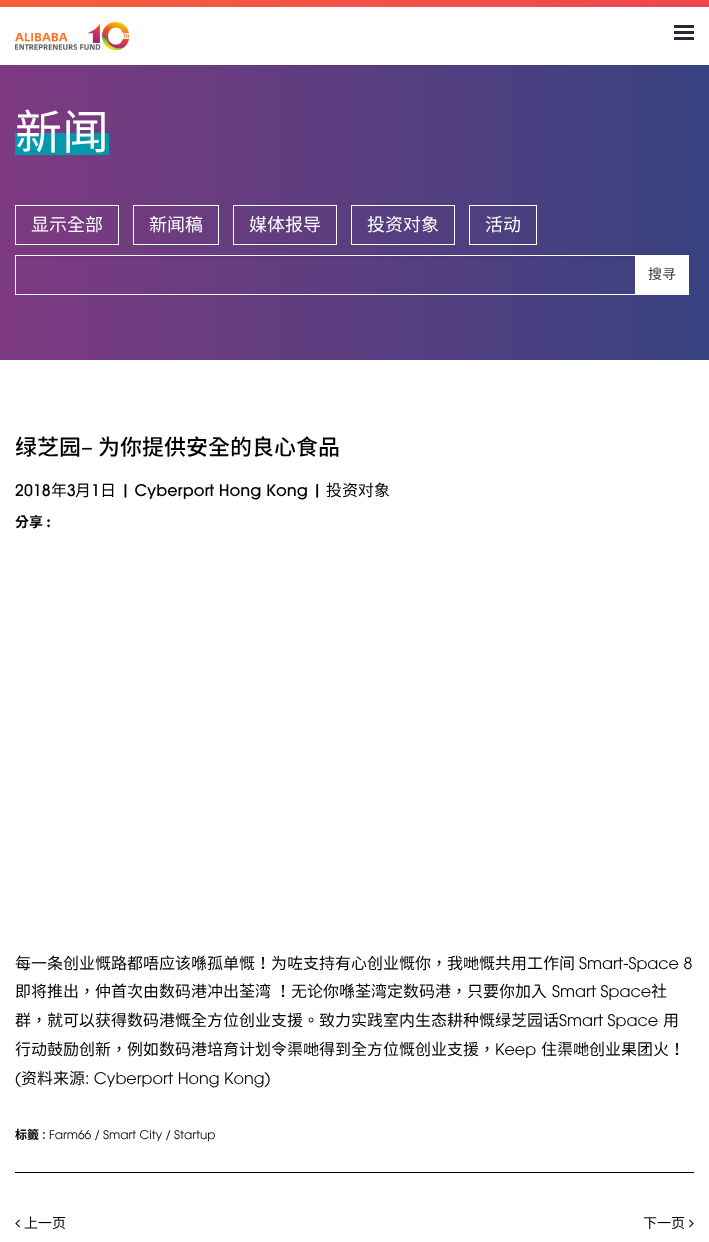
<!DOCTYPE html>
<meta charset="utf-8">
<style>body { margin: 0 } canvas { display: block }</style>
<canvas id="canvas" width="709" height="1242"></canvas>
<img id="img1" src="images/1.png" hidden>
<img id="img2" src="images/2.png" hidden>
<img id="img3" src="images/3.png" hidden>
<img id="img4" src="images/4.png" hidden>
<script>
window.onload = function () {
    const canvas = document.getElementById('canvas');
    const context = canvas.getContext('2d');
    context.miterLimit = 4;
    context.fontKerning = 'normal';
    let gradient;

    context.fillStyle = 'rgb(255, 255, 255)';
    context.fillRect(0, 0, 709, 1242);
    context.drawImage(document.getElementById('img1'), 0, 0, 709, 7);
    context.drawImage(document.getElementById('img2'), 15, 22, 114, 28);
    context.fillStyle = 'rgb(44, 40, 53)';
    context.fillRect(674, 25, 20, 3);
    context.fillRect(674, 31, 20, 3);
    context.fillRect(674, 37, 20, 3);
    gradient = context.createLinearGradient(0, 213, 709, 212);
    gradient.addColorStop(0, 'rgb(126, 58, 128)');
    gradient.addColorStop(1, 'rgb(55, 66, 128)');
    context.fillStyle = gradient;
    context.fillRect(0, 65, 709, 295);
    gradient = context.createLinearGradient(0, 213, 709, 212);
    gradient.addColorStop(0, 'rgb(117, 54, 119)');
    gradient.addColorStop(1, 'rgb(51, 61, 119)');
    context.fillStyle = gradient;
    context.fillRect(16, 256, 619, 1);
    context.fillStyle = 'rgb(2, 152, 171)';
    context.fillRect(15, 133, 94, 22);
    context.strokeStyle = 'rgb(255, 255, 255)';
    context.strokeRect(15.5, 205.5, 103, 39);
    context.strokeRect(133.5, 205.5, 85, 39);
    context.strokeRect(233.5, 205.5, 103, 39);
    context.strokeRect(351.5, 205.5, 103, 39);
    context.strokeRect(469.5, 205.5, 67, 39);
    context.strokeRect(15.5, 255.5, 620, 39);
    context.fillStyle = 'rgb(255, 255, 255)';
    context.fillRect(636, 255, 53, 40);
    context.fillStyle = 'rgb(0, 0, 0)';
    context.fillRect(15, 1172, 679, 1);
    context.drawImage(document.getElementById('img3'), 15, 1219, 5, 9);
    context.drawImage(document.getElementById('img4'), 689, 1219, 5, 9);
    context.font = '47px Noto Sans SC';
    context.fillStyle = 'rgb(255, 255, 255)';
    context.fillText('新闻', 15, 149);
    context.font = '18px Noto Sans SC';
    context.fillText('显', 31, 231);
    context.font = '18px Noto Sans TC';
    context.fillText('示全部', 49, 231);
    context.fillText('新', 149, 231);
    context.font = '18px Noto Sans SC';
    context.fillText('闻', 167, 231);
    context.font = '18px Noto Sans TC';
    context.fillText('稿', 185, 231);
    context.font = '18px Noto Sans SC';
    context.fillText('媒体报导', 249, 231);
    context.fillText('投资对象', 367, 231);
    context.font = '18px Noto Sans TC';
    context.fillText('活动', 485, 231);
    context.font = '14px Noto Sans SC';
    context.fillStyle = 'rgb(51, 51, 51)';
    context.fillText('搜寻', 648, 279);
    context.font = '500 22px Noto Sans SC';
    context.fillStyle = 'rgb(0, 0, 0)';
    context.fillText('绿', 15, 455);
    context.font = '500 22px Noto Sans TC';
    context.fillText('芝园–', 37, 455);
    context.font = '500 22px Noto Sans SC';
    context.fillText('为', 98, 455);
    context.font = '500 22px Noto Sans TC';
    context.fillText('你提供安全的良心食品', 120, 455);
    context.font = '16px "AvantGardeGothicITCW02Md"';
    context.fillText('2018', 15, 496);
    context.font = '16px Noto Sans TC';
    context.fillText('年', 51, 496);
    context.font = '16px "AvantGardeGothicITCW02Md"';
    context.fillText('3', 67, 496);
    context.font = '16px Noto Sans TC';
    context.fillText('月', 75, 496);
    context.font = '16px "AvantGardeGothicITCW02Md"';
    context.fillText('1', 91, 496);
    context.font = '16px Noto Sans TC';
    context.fillText('日', 100, 496);
    context.font = '16px "AvantGardeGothicITCW02Md"';
    context.fillText('| Cyberport Hong Kong |', 121, 496);
    context.font = '16px Noto Sans SC';
    context.fillText('投资对象', 326, 496);
    context.font = 'bold 14px Noto Sans TC';
    context.fillText('分享 :', 15, 527);
    context.font = '16px Noto Sans TC';
    context.fillText('每一条', 15, 969);
    context.font = '16px Noto Sans SC';
    context.fillText('创', 63, 969);
    context.font = '16px Noto Sans TC';
    context.fillText('业慨路都唔', 79, 969);
    context.font = '16px Noto Sans SC';
    context.fillText('应该', 159, 969);
    context.font = '16px Noto Sans TC';
    context.fillText('喺孤', 191, 969);
    context.font = '16px Noto Sans SC';
    context.fillText('单', 223, 969);
    context.font = '16px Noto Sans TC';
    context.fillText('慨！', 239, 969);
    context.font = '16px Noto Sans SC';
    context.fillText('为', 271, 969);
    context.font = '16px Noto Sans TC';
    context.fillText('咗支持有心', 287, 969);
    context.font = '16px Noto Sans SC';
    context.fillText('创', 367, 969);
    context.font = '16px Noto Sans TC';
    context.fillText('业慨你，我哋慨共用工作间', 383, 969);
    context.font = '16px "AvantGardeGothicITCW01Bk"';
    context.fillText('Smart-Space 8', 579, 969);
    context.font = '16px Noto Sans TC';
    context.fillText('即', 15, 997);
    context.font = '16px Noto Sans SC';
    context.fillText('将', 31, 997);
    context.font = '16px Noto Sans TC';
    context.fillText('推出，仲首次由', 47, 997);
    context.font = '16px Noto Sans SC';
    context.fillText('数码', 159, 997);
    context.font = '16px Noto Sans TC';
    context.fillText('港冲出荃', 191, 997);
    context.font = '16px Noto Sans SC';
    context.fillText('湾', 255, 997);
    context.font = '16px Noto Sans TC';
    context.fillText('！无', 275, 997);
    context.font = '16px Noto Sans SC';
    context.fillText('论', 307, 997);
    context.font = '16px Noto Sans TC';
    context.fillText('你喺荃', 323, 997);
    context.font = '16px Noto Sans SC';
    context.fillText('湾', 371, 997);
    context.font = '16px Noto Sans TC';
    context.fillText('定', 387, 997);
    context.font = '16px Noto Sans SC';
    context.fillText('数码', 403, 997);
    context.font = '16px Noto Sans TC';
    context.fillText('港，只要你加入', 435, 997);
    context.font = '16px "AvantGardeGothicITCW01Bk"';
    context.fillText('Smart Space', 552, 997);
    context.font = '16px Noto Sans TC';
    context.fillText('社', 651, 997);
    context.fillText('群，就可以', 15, 1026);
    context.font = '16px Noto Sans SC';
    context.fillText('获', 95, 1026);
    context.font = '16px Noto Sans TC';
    context.fillText('得', 111, 1026);
    context.font = '16px Noto Sans SC';
    context.fillText('数码', 127, 1026);
    context.font = '16px Noto Sans TC';
    context.fillText('港慨全方位', 159, 1026);
    context.font = '16px Noto Sans SC';
    context.fillText('创', 239, 1026);
    context.font = '16px Noto Sans TC';
    context.fillText('业支援。致力实', 255, 1026);
    context.font = '16px Noto Sans SC';
    context.fillText('践', 367, 1026);
    context.font = '16px Noto Sans TC';
    context.fillText('室', 383, 1026);
    context.font = '16px Noto Sans SC';
    context.fillText('内', 399, 1026);
    context.font = '16px Noto Sans TC';
    context.fillText('生', 415, 1026);
    context.font = '16px Noto Sans SC';
    context.fillText('态', 431, 1026);
    context.font = '16px Noto Sans TC';
    context.fillText('耕种慨', 447, 1026);
    context.font = '16px Noto Sans SC';
    context.fillText('绿', 495, 1026);
    context.font = '16px Noto Sans TC';
    context.fillText('芝园', 511, 1026);
    context.font = '16px Noto Sans SC';
    context.fillText('话', 543, 1026);
    context.font = '16px "AvantGardeGothicITCW01Bk"';
    context.fillText('Smart Space', 559, 1026);
    context.font = '16px Noto Sans TC';
    context.fillText('用', 663, 1026);
    context.fillText('行动鼓', 15, 1055);
    context.font = '16px Noto Sans SC';
    context.fillText('励创', 63, 1055);
    context.font = '16px Noto Sans TC';
    context.fillText('新，例如', 95, 1055);
    context.font = '16px Noto Sans SC';
    context.fillText('数码', 159, 1055);
    context.font = '16px Noto Sans TC';
    context.fillText('港培育', 191, 1055);
    context.font = '16px Noto Sans SC';
    context.fillText('计', 239, 1055);
    context.font = '16px Noto Sans TC';
    context.fillText('划令渠哋得到全方位慨', 255, 1055);
    context.font = '16px Noto Sans SC';
    context.fillText('创', 415, 1055);
    context.font = '16px Noto Sans TC';
    context.fillText('业支援，', 431, 1055);
    context.font = '16px "AvantGardeGothicITCW01Bk"';
    context.fillText('Keep', 495, 1055);
    context.font = '16px Noto Sans TC';
    context.fillText('住渠哋', 541, 1055);
    context.font = '16px Noto Sans SC';
    context.fillText('创', 589, 1055);
    context.font = '16px Noto Sans TC';
    context.fillText('业果团火！', 605, 1055);
    context.font = '16px "AvantGardeGothicITCW01Bk"';
    context.fillText('(', 15, 1084);
    context.font = '16px Noto Sans SC';
    context.fillText('资', 21, 1084);
    context.font = '16px Noto Sans TC';
    context.fillText('料', 37, 1084);
    context.font = '16px Noto Sans SC';
    context.fillText('来', 53, 1084);
    context.font = '16px Noto Sans TC';
    context.fillText('源', 69, 1084);
    context.font = '16px "AvantGardeGothicITCW01Bk"';
    context.fillText(': Cyberport Hong Kong)', 85, 1084);
    context.font = 'bold 12px Noto Sans SC';
    context.fillText('标', 15, 1139);
    context.font = 'bold 12px Noto Sans TC';
    context.fillText('籤', 27, 1139);
    context.font = 'bold 12px "AvantGardeGothicITCW01Bk"';
    context.fillText(':', 42, 1139);
    context.font = '12px "AvantGardeGothicITCW01Bk"';
    context.fillText('Farm66 / Smart City / Startup', 49, 1139);
    context.font = '14px Noto Sans TC';
    context.fillText('上一页', 24, 1228);
    context.fillText('下一页', 643, 1228);
};
</script>
